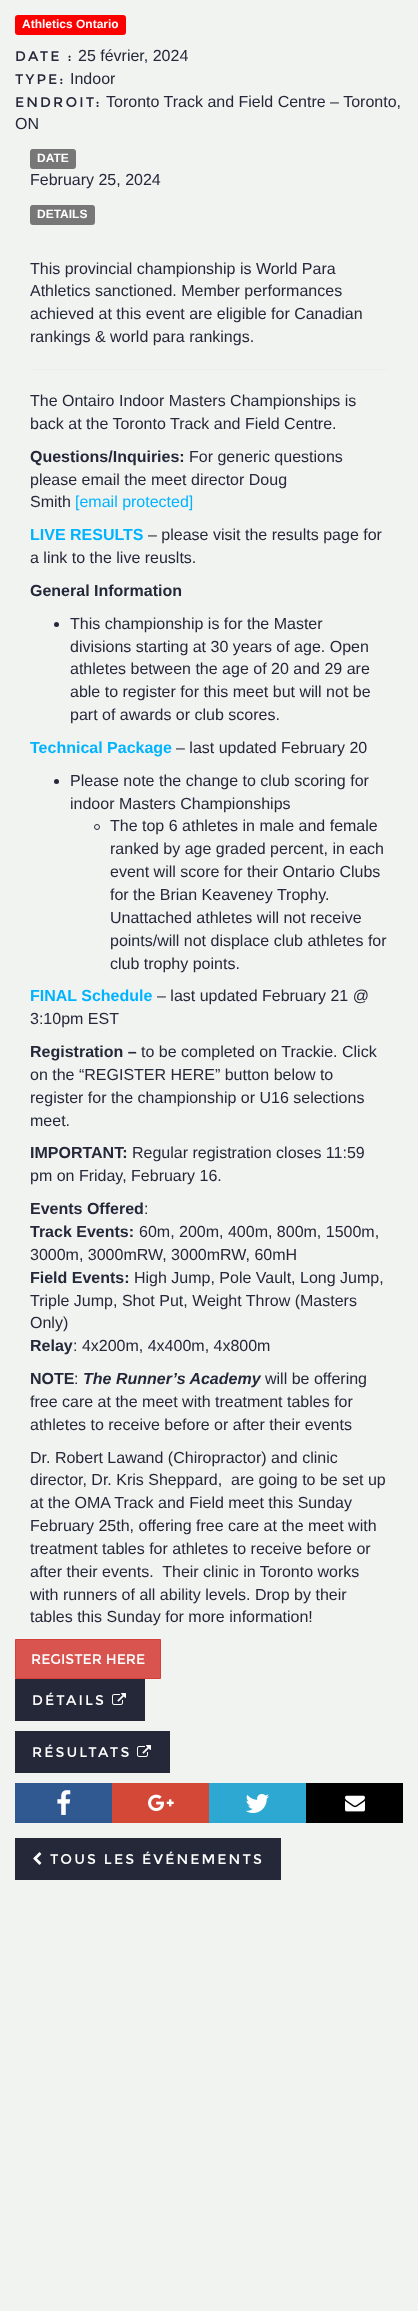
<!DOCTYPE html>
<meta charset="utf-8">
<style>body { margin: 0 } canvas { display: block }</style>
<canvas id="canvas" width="418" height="2311"></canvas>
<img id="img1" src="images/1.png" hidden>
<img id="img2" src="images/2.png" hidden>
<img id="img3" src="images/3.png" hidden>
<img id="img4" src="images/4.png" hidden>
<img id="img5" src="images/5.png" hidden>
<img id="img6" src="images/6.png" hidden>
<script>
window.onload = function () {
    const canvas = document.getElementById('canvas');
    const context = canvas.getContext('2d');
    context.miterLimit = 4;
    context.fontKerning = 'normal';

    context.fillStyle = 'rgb(241, 243, 241)';
    context.fillRect(0, 0, 418, 2311);
    context.fillStyle = 'rgb(253, 1, 0)';
    context.beginPath();
    context.roundRect(15, 15, 111, 20, 3);
    context.fill();
    context.fillStyle = 'rgb(119, 119, 119)';
    context.beginPath();
    context.roundRect(30, 149, 46, 20, 3);
    context.fill();
    context.beginPath();
    context.roundRect(30, 205, 65, 20, 3);
    context.fill();
    context.fillStyle = 'rgb(238, 238, 238)';
    context.fillRect(30, 369, 358, 1);
    context.fillStyle = 'rgb(36, 40, 56)';
    context.beginPath();
    context.arc(56.5, 624.5, 2.5, 0, 2 * Math.PI);
    context.fill();
    context.beginPath();
    context.arc(56.5, 781.5, 2.5, 0, 2 * Math.PI);
    context.fill();
    context.beginPath();
    context.arc(97, 827, 2.5, 0, 2 * Math.PI);
    context.strokeStyle = 'rgb(36, 40, 56)';
    context.stroke();
    context.fillStyle = 'rgb(217, 83, 79)';
    context.beginPath();
    context.rect(15.5, 1639.5, 145, 39);
    context.fill();
    context.strokeStyle = 'rgb(212, 63, 58)';
    context.stroke();
    context.fillStyle = 'rgb(36, 40, 56)';
    context.fillRect(15, 1679, 130, 42);
    context.drawImage(document.getElementById('img1'), 112, 1693, 14, 12);
    context.fillRect(15, 1731, 155, 42);
    context.drawImage(document.getElementById('img1'), 137, 1745, 14, 12);
    context.fillStyle = 'rgb(48, 88, 145)';
    context.fillRect(15, 1783, 97, 40);
    context.drawImage(document.getElementById('img2'), 57, 1790, 14, 25);
    context.fillStyle = 'rgb(211, 72, 54)';
    context.fillRect(112, 1783, 97, 40);
    context.drawImage(document.getElementById('img3'), 148, 1794, 26, 17);
    context.fillStyle = 'rgb(44, 168, 210)';
    context.fillRect(209, 1783, 97, 40);
    context.drawImage(document.getElementById('img4'), 245, 1794, 24, 19);
    context.fillStyle = 'rgb(0, 0, 0)';
    context.fillRect(306, 1783, 97, 40);
    context.drawImage(document.getElementById('img5'), 345, 1795, 20, 17);
    context.fillStyle = 'rgb(36, 40, 56)';
    context.fillRect(15, 1838, 266, 42);
    context.drawImage(document.getElementById('img6'), 33, 1852, 9, 13);
    context.font = 'bold 12px Liberation Sans';
    context.fillStyle = 'rgb(255, 255, 255)';
    context.fillText('Athletics Ontario', 22, 28);
    context.letterSpacing = '2.1px';
    context.font = '14px Montserrat';
    context.fillStyle = 'rgb(36, 40, 56)';
    context.fillText('DATE :', 15, 61);
    context.letterSpacing = '0px';
    context.font = '16px Liberation Sans';
    context.fillText('25 février, 2024', 78, 61);
    context.letterSpacing = '2.1px';
    context.font = '14px Montserrat';
    context.fillText('TYPE:', 15, 84);
    context.letterSpacing = '0px';
    context.font = '16px Liberation Sans';
    context.fillText('Indoor', 70, 84);
    context.letterSpacing = '2.1px';
    context.font = '14px Montserrat';
    context.fillText('ENDROIT:', 15, 107);
    context.letterSpacing = '0px';
    context.font = '16px Liberation Sans';
    context.fillText('Toronto Track and Field Centre – Toronto,', 106, 107);
    context.fillText('ON', 15, 129);
    context.font = 'bold 12px Liberation Sans';
    context.fillStyle = 'rgb(255, 255, 255)';
    context.fillText('DATE', 37, 162);
    context.font = '16px Liberation Sans';
    context.fillStyle = 'rgb(36, 40, 56)';
    context.fillText('February 25, 2024', 30, 185);
    context.font = 'bold 12px Liberation Sans';
    context.fillStyle = 'rgb(255, 255, 255)';
    context.fillText('DETAILS', 37, 218);
    context.font = '16px Liberation Sans';
    context.fillStyle = 'rgb(36, 40, 56)';
    context.fillText('This provincial championship is World Para', 30, 274);
    context.fillText('Athletics sanctioned. Member performances', 30, 296);
    context.fillText('achieved at this event are eligible for Canadian', 30, 319);
    context.fillText('rankings & world para rankings.', 30, 342);
    context.fillText('The Ontairo Indoor Masters Championships is', 30, 406);
    context.fillText('back at the Toronto Track and Field Centre.', 30, 429);
    context.font = 'bold 16px Liberation Sans';
    context.fillText('Questions/Inquiries:', 30, 462);
    context.font = '16px Liberation Sans';
    context.fillText('For generic questions', 189, 462);
    context.fillText('please email the meet director Doug', 30, 485);
    context.fillText('Smith', 30, 507);
    context.fillStyle = 'rgb(0, 179, 255)';
    context.fillText('[email protected]', 75, 507);
    context.font = 'bold 16px Liberation Sans';
    context.fillText('LIVE RESULTS', 30, 540);
    context.font = '16px Liberation Sans';
    context.fillStyle = 'rgb(36, 40, 56)';
    context.fillText('– please visit the results page for', 148, 540);
    context.fillText('a link to the live reuslts.', 30, 563);
    context.font = 'bold 16px Liberation Sans';
    context.fillText('General Information', 30, 596);
    context.font = '16px Liberation Sans';
    context.fillText('This championship is for the Master', 70, 629);
    context.fillText('divisions starting at 30 years of age. Open', 70, 652);
    context.fillText('athletes between the age of 20 and 29 are', 70, 674);
    context.fillText('able to register for this meet but will not be', 70, 697);
    context.fillText('part of awards or club scores.', 70, 720);
    context.font = 'bold 16px Liberation Sans';
    context.fillStyle = 'rgb(0, 179, 255)';
    context.fillText('Technical Package', 30, 753);
    context.font = '16px Liberation Sans';
    context.fillStyle = 'rgb(36, 40, 56)';
    context.fillText('– last updated February 20', 176, 753);
    context.fillText('Please note the change to club scoring for', 70, 786);
    context.fillText('indoor Masters Championships', 70, 809);
    context.fillText('The top 6 athletes in male and female', 110, 831);
    context.fillText('ranked by age graded percent, in each', 110, 854);
    context.fillText('event will score for their Ontario Clubs', 110, 877);
    context.fillText('for the Brian Keaveney Trophy.', 110, 900);
    context.fillText('Unattached athletes will not receive', 110, 923);
    context.fillText('points/will not displace club athletes for', 110, 946);
    context.fillText('club trophy points.', 110, 969);
    context.font = 'bold 16px Liberation Sans';
    context.fillStyle = 'rgb(0, 179, 255)';
    context.fillText('FINAL Schedule', 30, 1001);
    context.font = '16px Liberation Sans';
    context.fillStyle = 'rgb(36, 40, 56)';
    context.fillText('– last updated February 21 @', 157, 1001);
    context.fillText('3:10pm EST', 30, 1024);
    context.font = 'bold 16px Liberation Sans';
    context.fillText('Registration –', 30, 1057);
    context.font = '16px Liberation Sans';
    context.fillText('to be completed on Trackie. Click', 141, 1057);
    context.fillText('on the “REGISTER HERE” button below to', 30, 1080);
    context.fillText('register for the championship or U16 selections', 30, 1103);
    context.fillText('meet.', 30, 1126);
    context.font = 'bold 16px Liberation Sans';
    context.fillText('IMPORTANT:', 30, 1158);
    context.font = '16px Liberation Sans';
    context.fillText('Regular registration closes 11:59', 132, 1158);
    context.fillText('pm on Friday, February 16.', 30, 1181);
    context.font = 'bold 16px Liberation Sans';
    context.fillText('Events Offered', 30, 1214);
    context.font = '16px Liberation Sans';
    context.fillText(':', 144, 1214);
    context.font = 'bold 16px Liberation Sans';
    context.fillText('Track Events:', 30, 1237);
    context.font = '16px Liberation Sans';
    context.fillText('60m, 200m, 400m, 800m, 1500m,', 139, 1237);
    context.fillText('3000m, 3000mRW, 3000mRW, 60mH', 30, 1260);
    context.font = 'bold 16px Liberation Sans';
    context.fillText('Field Events:', 30, 1283);
    context.font = '16px Liberation Sans';
    context.fillText('High Jump, Pole Vault, Long Jump,', 134, 1283);
    context.fillText('Triple Jump, Shot Put, Weight Throw (Masters', 30, 1306);
    context.fillText('Only)', 30, 1328);
    context.font = 'bold 16px Liberation Sans';
    context.fillText('Relay', 30, 1351);
    context.font = '16px Liberation Sans';
    context.fillText(': 4x200m, 4x400m, 4x800m', 73, 1351);
    context.font = 'bold 16px Liberation Sans';
    context.fillText('NOTE', 30, 1384);
    context.font = '16px Liberation Sans';
    context.fillText(':', 74, 1384);
    context.font = 'italic bold 16px Liberation Sans';
    context.fillText('The Runner’s Academy', 83, 1384);
    context.font = '16px Liberation Sans';
    context.fillText('will be offering', 265, 1384);
    context.fillText('free care at the meet with treatment tables for', 30, 1407);
    context.fillText('athletes to receive before or after their events', 30, 1430);
    context.fillText('Dr. Robert Lawand (Chiropractor) and clinic', 30, 1463);
    context.fillText('director, Dr. Kris Sheppard,  are going to be set up', 30, 1485);
    context.fillText('at the OMA Track and Field meet this Sunday', 30, 1508);
    context.fillText('February 25th, offering free care at the meet with', 30, 1531);
    context.fillText('treatment tables for athletes to receive before or', 30, 1554);
    context.fillText('after their events.  Their clinic in Toronto works', 30, 1577);
    context.fillText('with runners of all ability levels. Drop by their', 30, 1600);
    context.fillText('tables this Sunday for more information!', 30, 1622);
    context.font = '14px Montserrat';
    context.fillStyle = 'rgb(255, 255, 255)';
    context.fillText('REGISTER HERE', 31, 1664);
    context.letterSpacing = '2.1px';
    context.fillText('DÉTAILS', 32, 1705);
    context.fillText('RÉSULTATS', 32, 1757);
    context.fillText('TOUS LES ÉVÉNEMENTS', 50, 1864);
};
</script>
